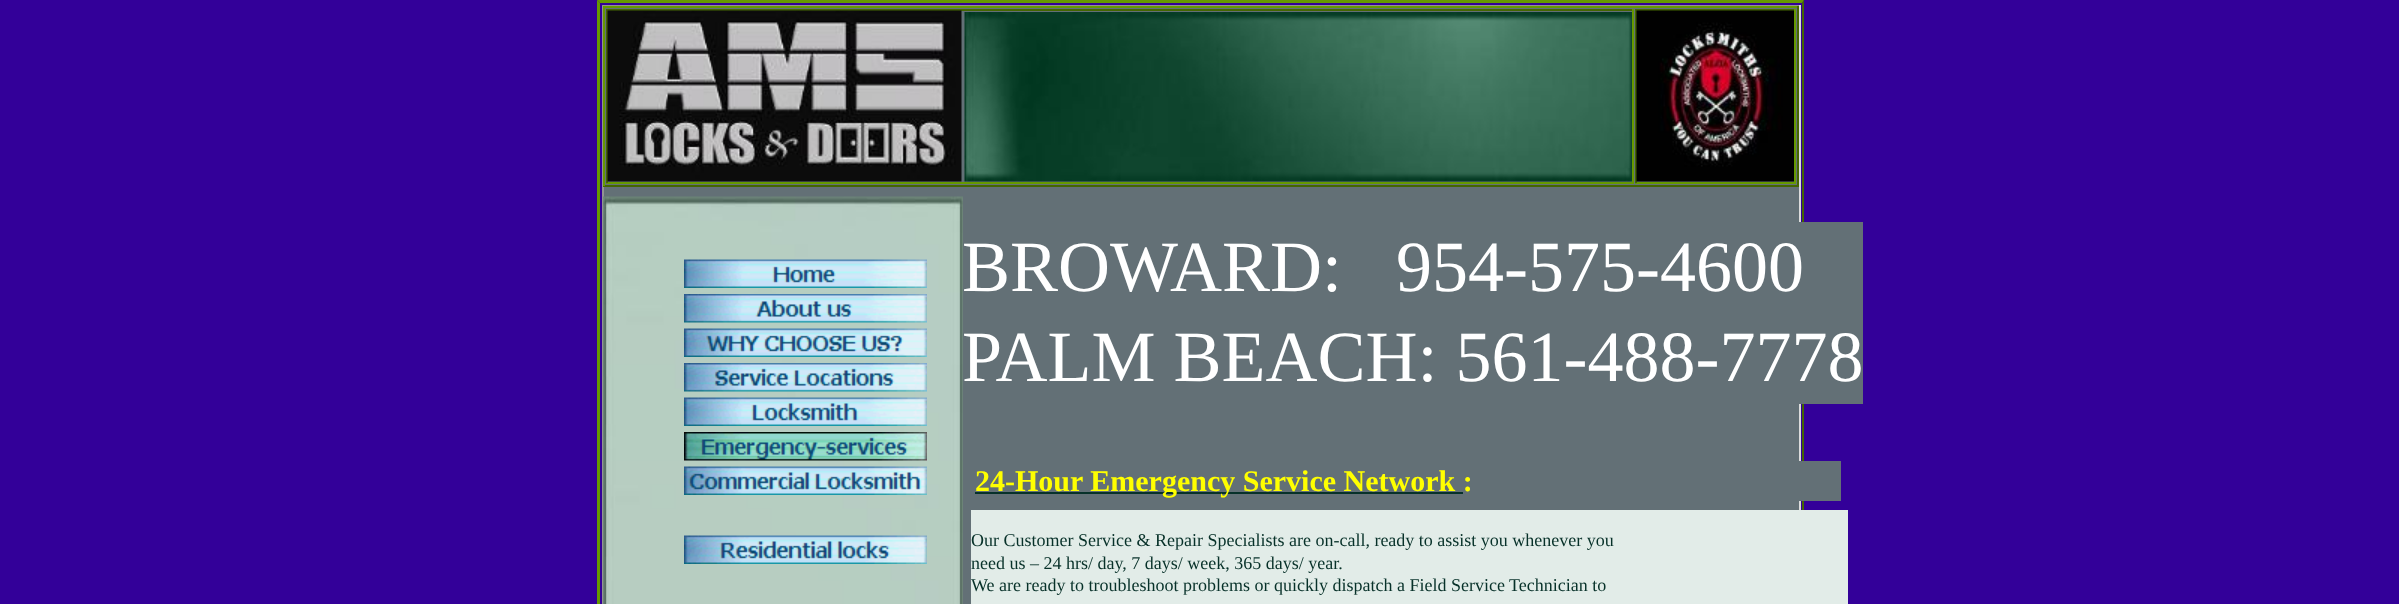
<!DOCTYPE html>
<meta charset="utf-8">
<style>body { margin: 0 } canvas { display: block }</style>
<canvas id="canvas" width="2399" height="604"></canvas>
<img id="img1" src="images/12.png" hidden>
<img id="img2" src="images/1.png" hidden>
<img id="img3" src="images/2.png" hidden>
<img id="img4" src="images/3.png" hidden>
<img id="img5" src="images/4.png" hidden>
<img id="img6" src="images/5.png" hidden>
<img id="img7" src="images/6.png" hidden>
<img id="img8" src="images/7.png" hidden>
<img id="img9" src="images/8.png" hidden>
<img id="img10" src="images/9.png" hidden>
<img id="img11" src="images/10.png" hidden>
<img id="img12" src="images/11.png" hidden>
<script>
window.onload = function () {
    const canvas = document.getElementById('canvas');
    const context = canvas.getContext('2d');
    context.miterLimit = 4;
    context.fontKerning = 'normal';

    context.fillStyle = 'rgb(51, 0, 153)';
    context.fillRect(0, 0, 2399, 604);
    context.fillStyle = 'rgb(102, 153, 0)';
    context.beginPath();
    context.moveTo(597, 0);
    context.lineTo(1804, 0);
    context.lineTo(1802, 3);
    context.lineTo(600, 3);
    context.closePath();
    context.fill();
    context.fillStyle = 'rgb(68, 102, 0)';
    context.beginPath();
    context.moveTo(1804, 0);
    context.lineTo(1804, 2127);
    context.lineTo(1802, 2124);
    context.lineTo(1802, 3);
    context.closePath();
    context.fill();
    context.fillStyle = 'rgb(102, 153, 0)';
    context.beginPath();
    context.moveTo(597, 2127);
    context.lineTo(597, 0);
    context.lineTo(600, 3);
    context.lineTo(600, 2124);
    context.closePath();
    context.fill();
    context.fillStyle = 'rgb(99, 112, 118)';
    context.fillRect(604, 8, 1195, 596);
    context.fillStyle = 'rgb(147, 147, 147)';
    context.fillRect(602, 5, 1198, 1);
    context.fillStyle = 'rgb(220, 220, 220)';
    context.fillRect(1799, 5, 2, 505);
    context.fillStyle = 'rgb(147, 147, 147)';
    context.fillRect(602, 5, 2, 599);
    context.drawImage(document.getElementById('img1'), 603, 196, 360, 408);
    context.drawImage(document.getElementById('img2'), 684, 259, 243, 29);
    context.drawImage(document.getElementById('img3'), 684, 294, 243, 29);
    context.drawImage(document.getElementById('img4'), 684, 328, 243, 29);
    context.drawImage(document.getElementById('img5'), 684, 363, 243, 29);
    context.drawImage(document.getElementById('img6'), 684, 397, 243, 29);
    context.drawImage(document.getElementById('img7'), 684, 432, 243, 29);
    context.drawImage(document.getElementById('img8'), 684, 466, 243, 29);
    context.drawImage(document.getElementById('img9'), 684, 535, 243, 29);
    context.fillStyle = 'rgb(102, 153, 0)';
    context.fillRect(603, 6, 1196, 2);
    context.fillStyle = 'rgb(68, 102, 0)';
    context.fillRect(1797, 6, 2, 180);
    context.fillRect(603, 185, 1196, 2);
    context.fillStyle = 'rgb(102, 153, 0)';
    context.fillRect(603, 6, 2, 180);
    context.fillStyle = 'rgb(68, 102, 0)';
    context.fillRect(606, 9, 1028, 2);
    context.fillStyle = 'rgb(102, 153, 0)';
    context.fillRect(1632, 9, 2, 174);
    context.fillRect(606, 182, 1028, 2);
    context.fillStyle = 'rgb(68, 102, 0)';
    context.fillRect(606, 9, 2, 174);
    context.drawImage(document.getElementById('img10'), 607, 10, 355, 172);
    context.drawImage(document.getElementById('img11'), 964, 12, 668, 170);
    context.fillRect(1635, 9, 161, 2);
    context.fillStyle = 'rgb(102, 153, 0)';
    context.fillRect(1794, 9, 2, 174);
    context.fillRect(1635, 182, 161, 2);
    context.fillStyle = 'rgb(68, 102, 0)';
    context.fillRect(1635, 9, 2, 174);
    context.drawImage(document.getElementById('img12'), 1636, 10, 158, 172);
    context.fillStyle = 'rgb(99, 112, 118)';
    context.fillRect(1799, 222, 64, 182);
    context.fillRect(1799, 461, 42, 40);
    context.fillStyle = 'rgb(7, 49, 41)';
    context.fillRect(975, 492, 488, 2);
    context.fillStyle = 'rgb(226, 236, 232)';
    context.fillRect(971, 510, 877, 94);
    context.font = '72px Liberation Serif';
    context.fillStyle = 'rgb(255, 255, 255)';
    context.fillText('BROWARD:   954-575-4600', 962, 291);
    context.fillText('PALM BEACH: 561-488-7778', 962, 381);
    context.font = 'bold 30px Liberation Serif';
    context.fillStyle = 'rgb(255, 255, 0)';
    context.fillText('24-Hour Emergency Service Network :', 975, 491);
    context.font = '18px Liberation Serif';
    context.fillStyle = 'rgb(7, 49, 41)';
    context.fillText('Our Customer Service & Repair Specialists are on-call, ready to assist you whenever you', 971, 546);
    context.fillText('need us – 24 hrs/ day, 7 days/ week, 365 days/ year.', 971, 569);
    context.fillText('We are ready to troubleshoot problems or quickly dispatch a Field Service Technician to', 971, 591);
};
</script>
